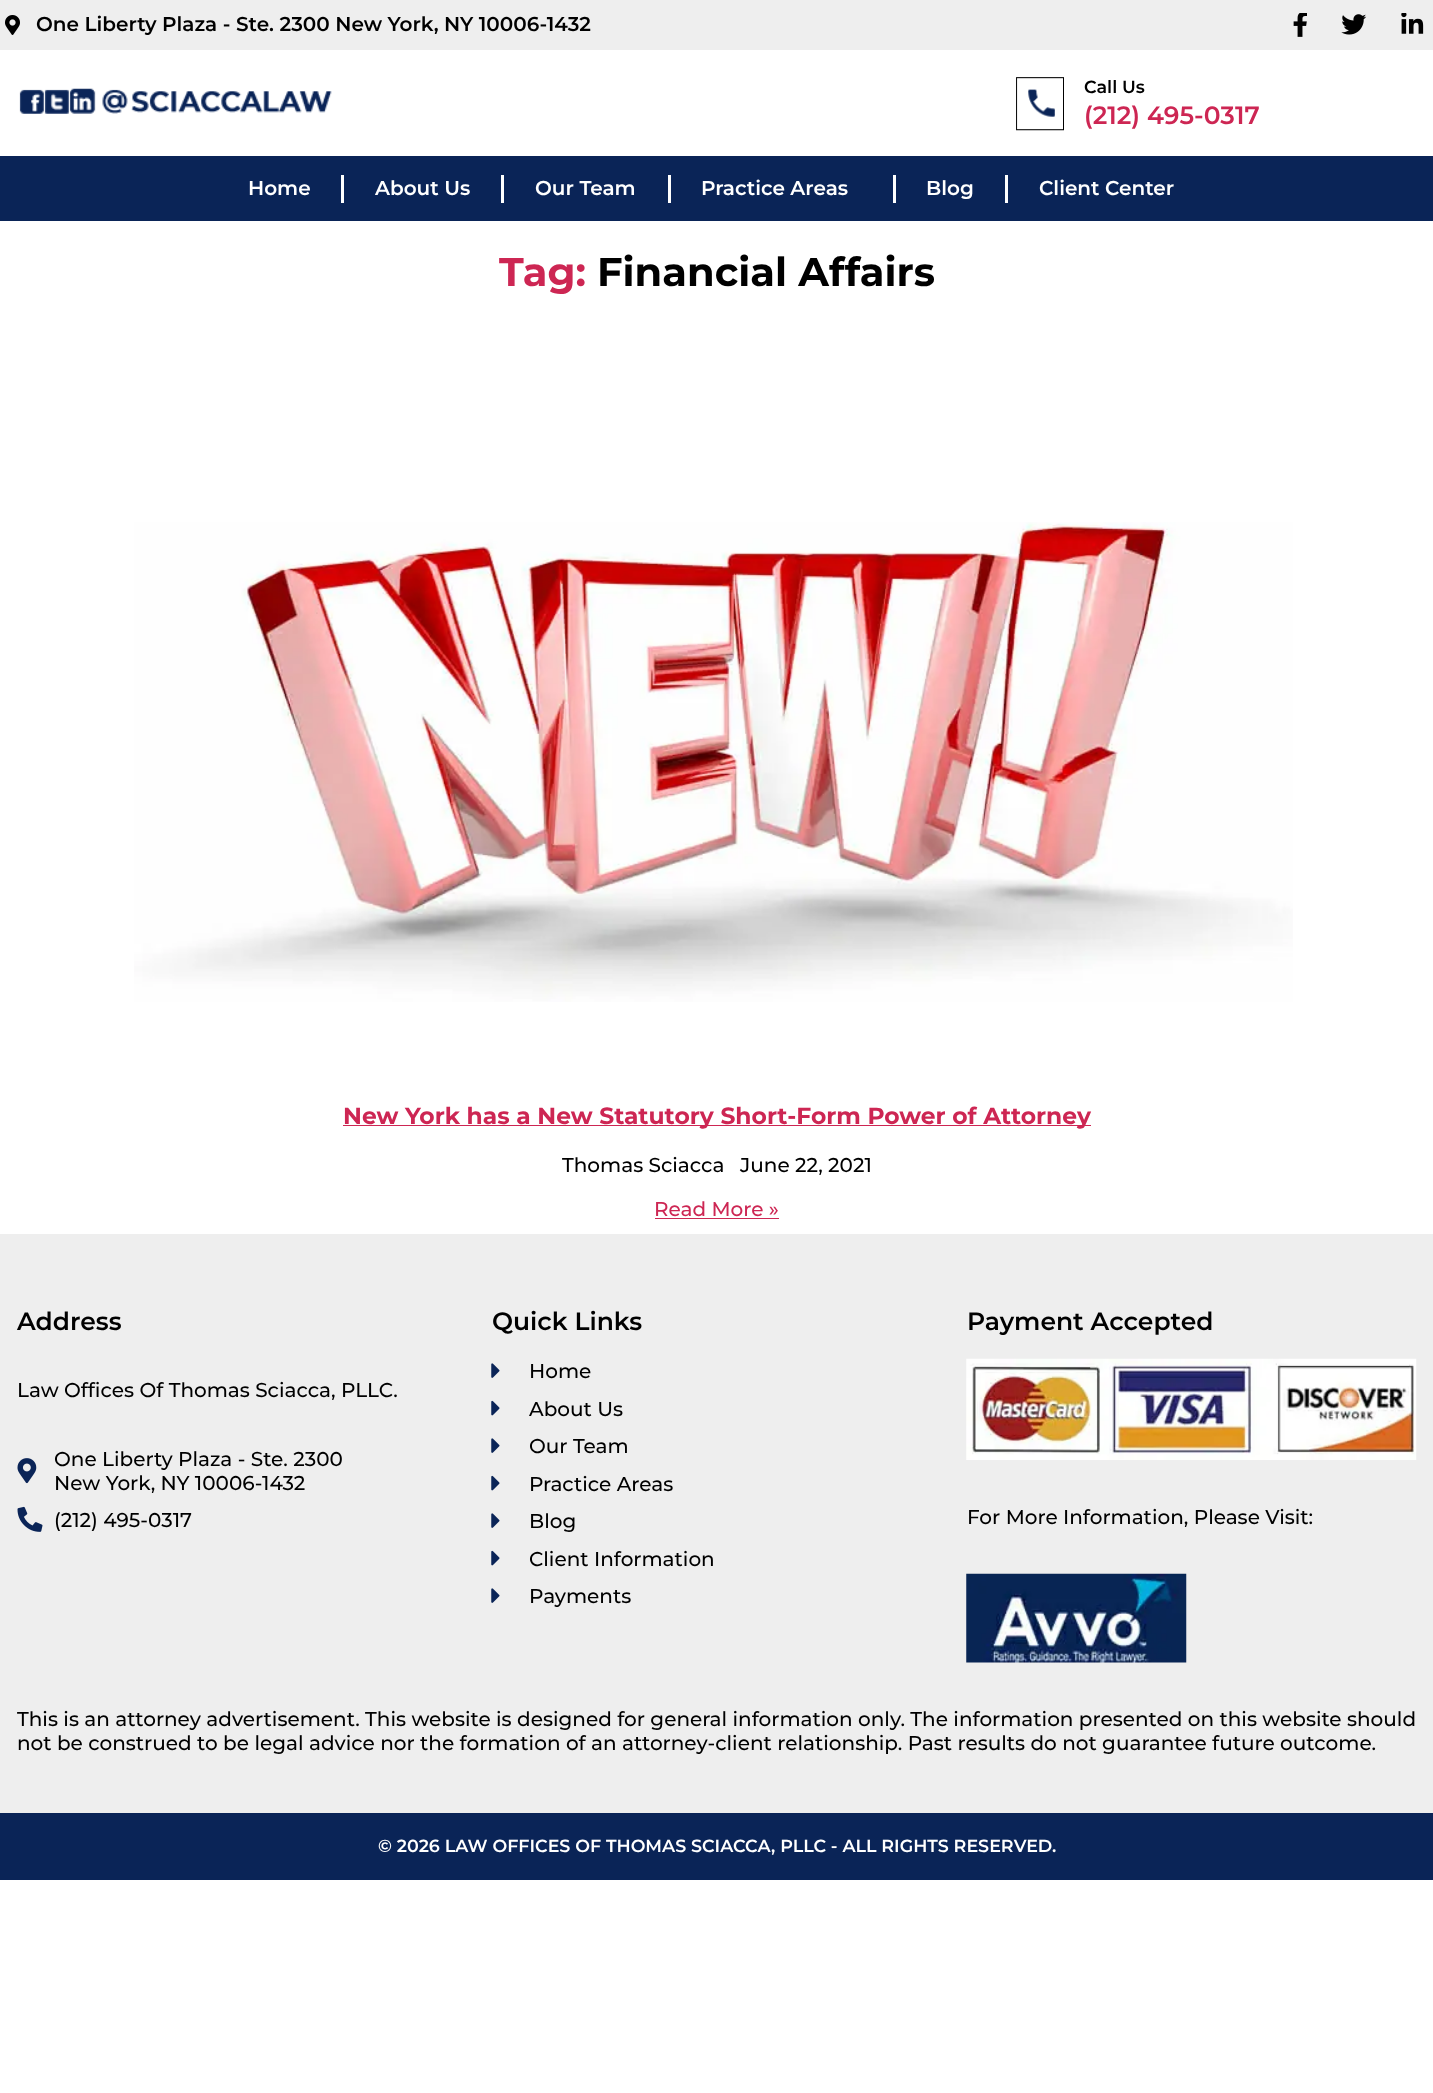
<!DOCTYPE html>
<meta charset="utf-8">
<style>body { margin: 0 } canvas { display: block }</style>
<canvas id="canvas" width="1433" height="2093"></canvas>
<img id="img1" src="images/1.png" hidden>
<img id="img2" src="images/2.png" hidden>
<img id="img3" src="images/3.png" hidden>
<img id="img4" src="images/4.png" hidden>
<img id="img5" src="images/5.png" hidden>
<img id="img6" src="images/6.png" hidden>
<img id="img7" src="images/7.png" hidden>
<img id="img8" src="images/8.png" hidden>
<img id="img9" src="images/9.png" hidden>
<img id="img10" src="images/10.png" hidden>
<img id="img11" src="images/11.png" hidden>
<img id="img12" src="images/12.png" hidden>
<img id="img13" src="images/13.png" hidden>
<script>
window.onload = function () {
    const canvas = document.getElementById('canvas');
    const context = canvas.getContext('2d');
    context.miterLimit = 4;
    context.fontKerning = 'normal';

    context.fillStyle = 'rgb(255, 255, 255)';
    context.fillRect(0, 0, 1433, 2093);
    context.fillStyle = 'rgb(238, 238, 238)';
    context.fillRect(0, 0, 1433, 50);
    context.drawImage(document.getElementById('img1'), 5, 15, 15, 20);
    context.drawImage(document.getElementById('img2'), 1293, 13, 14, 24);
    context.drawImage(document.getElementById('img3'), 1341, 14, 26, 21);
    context.drawImage(document.getElementById('img4'), 1401, 13, 23, 21);
    context.drawImage(document.getElementById('img5'), 19, 88, 313, 26);
    context.drawImage(document.getElementById('img6'), 1016, 77, 48, 54);
    context.fillStyle = 'rgb(10, 36, 87)';
    context.fillRect(0, 156, 1433, 65);
    context.fillStyle = 'rgb(255, 255, 255)';
    context.fillRect(341, 175, 3, 28);
    context.fillRect(501, 175, 3, 28);
    context.fillRect(668, 175, 3, 28);
    context.fillRect(893, 175, 3, 28);
    context.fillRect(1005, 175, 3, 28);
    context.drawImage(document.getElementById('img7'), 134, 522, 1159, 480);
    context.fillStyle = 'rgb(205, 38, 83)';
    context.fillRect(343, 1125, 748, 1);
    context.fillRect(655, 1218, 124, 1);
    context.fillStyle = 'rgb(238, 238, 238)';
    context.fillRect(0, 1234, 1433, 579);
    context.drawImage(document.getElementById('img8'), 17, 1458, 20, 26);
    context.drawImage(document.getElementById('img9'), 17, 1506, 26, 26);
    context.drawImage(document.getElementById('img10'), 491, 1363, 9, 15);
    context.drawImage(document.getElementById('img11'), 491, 1400, 9, 16);
    context.drawImage(document.getElementById('img10'), 491, 1438, 9, 15);
    context.drawImage(document.getElementById('img11'), 491, 1475, 9, 16);
    context.drawImage(document.getElementById('img10'), 491, 1513, 9, 15);
    context.drawImage(document.getElementById('img11'), 491, 1550, 9, 16);
    context.drawImage(document.getElementById('img10'), 491, 1588, 9, 15);
    context.drawImage(document.getElementById('img12'), 966, 1358, 451, 102);
    context.drawImage(document.getElementById('img13'), 966, 1573, 221, 90);
    context.fillStyle = 'rgb(10, 36, 87)';
    context.fillRect(0, 1813, 1433, 67);
    context.font = '600 20px Montserrat';
    context.fillStyle = 'rgb(0, 0, 0)';
    context.fillText('One Liberty Plaza - Ste. 2300 New York, NY 10006-1432', 36, 31);
    context.font = '600 17.5px Montserrat';
    context.fillText('Call Us', 1084, 93);
    context.font = '600 25px Montserrat';
    context.fillStyle = 'rgb(205, 38, 83)';
    context.fillText('(212) 495-0317', 1084, 124);
    context.font = '600 20px Montserrat';
    context.fillStyle = 'rgb(255, 255, 255)';
    context.fillText('Home', 248, 195);
    context.fillText('About Us', 375, 195);
    context.fillText('Our Team', 535, 195);
    context.fillText('Practice Areas', 701, 195);
    context.fillText('Blog', 926, 195);
    context.fillText('Client Center', 1039, 195);
    context.font = 'bold 40px Montserrat';
    context.fillStyle = 'rgb(205, 38, 83)';
    context.fillText('Tag:', 499, 286);
    context.fillStyle = 'rgb(0, 0, 0)';
    context.fillText('Financial Affairs', 597, 286);
    context.font = 'bold 23.4px Montserrat';
    context.fillStyle = 'rgb(205, 38, 83)';
    context.fillText('New York has a New Statutory Short-Form Power of Attorney', 343, 1124);
    context.font = '500 20px Montserrat';
    context.fillStyle = 'rgb(0, 0, 0)';
    context.fillText('Thomas Sciacca', 562, 1172);
    context.fillText('June 22, 2021', 740, 1172);
    context.fillStyle = 'rgb(205, 38, 83)';
    context.fillText('Read More »', 654, 1216);
    context.font = '600 25px Montserrat';
    context.fillStyle = 'rgb(0, 0, 0)';
    context.fillText('Address', 17, 1330);
    context.font = '500 20px Montserrat';
    context.fillText('Law Offices Of Thomas Sciacca, PLLC.', 17, 1397);
    context.fillText('One Liberty Plaza - Ste. 2300', 54, 1466);
    context.fillText('New York, NY 10006-1432', 54, 1490);
    context.fillText('(212) 495-0317', 54, 1527);
    context.font = '600 25px Montserrat';
    context.fillText('Quick Links', 492, 1330);
    context.font = '500 20px Montserrat';
    context.fillText('Home', 529, 1378);
    context.fillText('About Us', 529, 1416);
    context.fillText('Our Team', 529, 1453);
    context.fillText('Practice Areas', 529, 1491);
    context.fillText('Blog', 529, 1528);
    context.fillText('Client Information', 529, 1566);
    context.fillText('Payments', 529, 1603);
    context.font = '600 25px Montserrat';
    context.fillText('Payment Accepted', 967, 1330);
    context.font = '500 20px Montserrat';
    context.fillText('For More Information, Please Visit:', 967, 1524);
    context.fillText('This is an attorney advertisement. This website is designed for general information only. The information presented on this website should', 17, 1726);
    context.fillText('not be construed to be legal advice nor the formation of an attorney-client relationship. Past results do not guarantee future outcome.', 17, 1750);
    context.font = '600 17.5px Montserrat';
    context.fillStyle = 'rgb(255, 255, 255)';
    context.fillText('© 2026 LAW OFFICES OF THOMAS SCIACCA, PLLC - ALL RIGHTS RESERVED.', 378, 1852);
};
</script>
